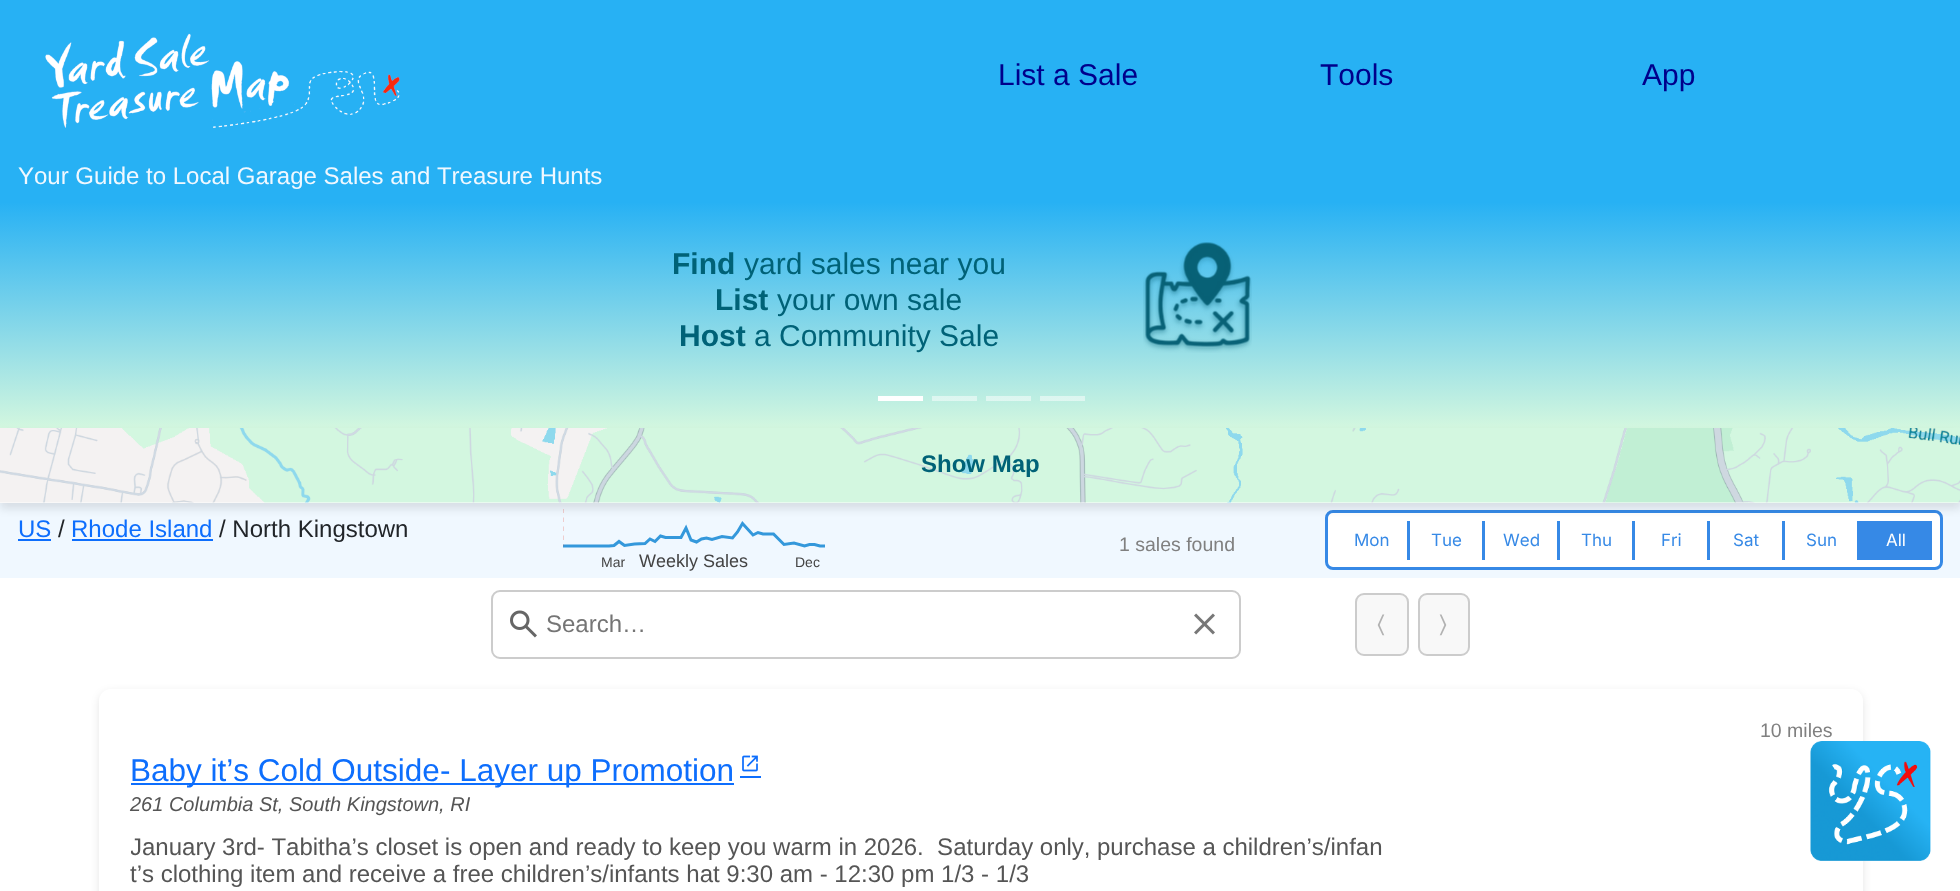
<!DOCTYPE html>
<meta charset="utf-8">
<style>body { margin: 0 } canvas { display: block }</style>
<canvas id="canvas" width="1960" height="891"></canvas>
<img id="img1" src="images/1.png" hidden>
<img id="img2" src="images/2.png" hidden>
<img id="img3" src="images/3.png" hidden>
<img id="img4" src="images/4.png" hidden>
<img id="img5" src="images/5.png" hidden>
<img id="img6" src="images/6.png" hidden>
<img id="img7" src="images/7.png" hidden>
<script>
window.onload = function () {
    const canvas = document.getElementById('canvas');
    const context = canvas.getContext('2d');
    context.miterLimit = 4;
    context.fontKerning = 'none';
    let gradient;

    context.fillStyle = 'rgb(255, 255, 255)';
    context.fillRect(0, 0, 1960, 891);
    context.fillStyle = 'rgb(39, 177, 244)';
    context.fillRect(0, 0, 1960, 203);
    context.drawImage(document.getElementById('img1'), 45, 33, 355, 95);
    gradient = context.createLinearGradient(980, 202, 980, 428);
    gradient.addColorStop(0, 'rgb(39, 177, 244)');
    gradient.addColorStop(1, 'rgb(211, 247, 223)');
    context.fillStyle = gradient;
    context.fillRect(0, 203, 1960, 225);
    gradient = context.createLinearGradient(980, 202, 980, 428);
    gradient.addColorStop(0, 'rgb(147, 216, 250)');
    gradient.addColorStop(1, 'rgb(233, 251, 239)');
    context.fillStyle = gradient;
    context.fillRect(1040, 396, 45, 5);
    context.fillRect(986, 396, 45, 5);
    context.fillRect(932, 396, 45, 5);
    context.drawImage(document.getElementById('img2'), 1143, 242, 109, 111);
    context.fillStyle = 'rgb(255, 255, 255)';
    context.fillRect(878, 396, 45, 5);
    context.fillStyle = 'rgb(240, 248, 255)';
    context.fillRect(0, 503, 1960, 75);
    context.fillStyle = 'rgb(255, 255, 255)';
    context.beginPath();
    context.roundRect(1326.5, 511.5, 615, 57, 6.5);
    context.fill();
    context.strokeStyle = 'rgb(54, 137, 230)';
    context.lineWidth = 3;
    context.stroke();
    context.fillStyle = 'rgb(54, 137, 230)';
    context.fillRect(1407, 521, 3, 39);
    context.fillRect(1482, 521, 3, 39);
    context.fillRect(1557, 521, 3, 39);
    context.fillRect(1632, 521, 3, 39);
    context.fillRect(1707, 521, 3, 39);
    context.fillRect(1782, 521, 3, 39);
    context.fillRect(1857, 521, 75, 39);
    context.save();
    context.beginPath();
    context.rect(563, 509, 262, 64);
    context.clip();
    context.beginPath();
    context.moveTo(562.5, 546);
    context.lineTo(609, 546);
    context.lineTo(614, 545.5);
    context.lineTo(619, 541.5);
    context.lineTo(624.5, 545.5);
    context.lineTo(634.5, 544);
    context.lineTo(645, 543.5);
    context.lineTo(650, 539);
    context.lineTo(655, 541.5);
    context.lineTo(660.5, 536);
    context.lineTo(665.5, 537.5);
    context.lineTo(681, 537.5);
    context.lineTo(686, 528);
    context.lineTo(691, 540);
    context.lineTo(696.5, 542);
    context.lineTo(701.5, 539);
    context.lineTo(706.5, 538);
    context.lineTo(712, 539.5);
    context.lineTo(722, 536.5);
    context.lineTo(732.5, 538);
    context.lineTo(737.5, 532);
    context.lineTo(742.5, 523.5);
    context.lineTo(753, 535);
    context.lineTo(758, 532.5);
    context.lineTo(763, 534);
    context.lineTo(773.5, 534);
    context.lineTo(784, 544.5);
    context.lineTo(794, 543);
    context.lineTo(804.5, 546);
    context.lineTo(809.5, 544.5);
    context.lineTo(814.5, 544.5);
    context.lineTo(820, 546);
    context.lineTo(825, 546);
    context.strokeStyle = 'rgb(52, 152, 219)';
    context.stroke();
    context.beginPath();
    context.moveTo(562.5, 508.5);
    context.lineTo(562.5, 546);
    context.strokeStyle = 'rgb(231, 76, 60)';
    context.lineWidth = 1.5;
    context.setLineDash([4.5, 4.5]);
    context.stroke();
    context.restore();
    context.fillStyle = 'rgba(0, 0, 0, 0.1)';
    context.filter = 'blur(4.5px)';
    context.beginPath();
    context.rect(0, 434, 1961, 75);
    context.fill();
    context.filter = 'none';
    context.fillStyle = 'rgb(255, 255, 255)';
    context.fillRect(0, 502, 1960, 1);
    context.drawImage(document.getElementById('img3'), 0, 428, 1960, 75);
    context.fillStyle = 'rgb(13, 110, 253)';
    context.fillRect(18, 539, 33, 2);
    context.fillRect(72, 539, 141, 2);
    context.beginPath();
    context.roundRect(492, 591, 748, 67, 8);
    context.strokeStyle = 'rgb(204, 204, 204)';
    context.lineWidth = 2;
    context.stroke();
    context.drawImage(document.getElementById('img4'), 510, 610, 27, 28);
    context.drawImage(document.getElementById('img5'), 1194, 613, 21, 22);
    context.fillStyle = 'rgb(248, 248, 248)';
    context.beginPath();
    context.roundRect(1356, 594, 52, 61, 8);
    context.fill();
    context.stroke();
    context.beginPath();
    context.roundRect(1419, 594, 50, 61, 8);
    context.fill();
    context.stroke();
    context.save();
    context.beginPath();
    context.moveTo(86, 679);
    context.lineTo(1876, 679);
    context.lineTo(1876, 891);
    context.lineTo(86, 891);
    context.closePath();
    context.moveTo(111, 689);
    context.lineTo(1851, 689);
    context.bezierCurveTo(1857.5, 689, 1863, 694.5, 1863, 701);
    context.lineTo(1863, 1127);
    context.bezierCurveTo(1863, 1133.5, 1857.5, 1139, 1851, 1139);
    context.lineTo(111, 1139);
    context.bezierCurveTo(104.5, 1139, 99, 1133.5, 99, 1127);
    context.lineTo(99, 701);
    context.bezierCurveTo(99, 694.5, 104.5, 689, 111, 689);
    context.closePath();
    context.clip('evenodd');
    context.fillStyle = 'rgba(0, 0, 0, 0.1)';
    context.filter = 'blur(4px)';
    context.beginPath();
    context.roundRect(99, 692, 1764, 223, 12);
    context.fill();
    context.filter = 'none';
    context.restore();
    context.fillStyle = 'rgb(13, 110, 253)';
    context.fillRect(131, 783, 603, 2);
    context.drawImage(document.getElementById('img6'), 742, 755, 16, 17);
    context.fillRect(740, 776, 21, 2);
    context.drawImage(document.getElementById('img7'), 1810, 741, 121, 120);
    context.font = '30px Liberation Sans';
    context.fillStyle = 'rgb(0, 0, 139)';
    context.fillText('List a Sale', 998, 85);
    context.fillText('Tools', 1320, 85);
    context.fillText('App', 1642, 85);
    context.font = '24px Liberation Sans';
    context.fillStyle = 'rgb(240, 248, 255)';
    context.fillText('Your Guide to Local Garage Sales and Treasure Hunts', 18, 184);
    context.font = 'bold 30px Liberation Sans';
    context.fillStyle = 'rgb(0, 98, 119)';
    context.fillText('Find', 672, 274);
    context.font = '30px Liberation Sans';
    context.fillText('yard sales near you', 744, 274);
    context.font = 'bold 30px Liberation Sans';
    context.fillText('List', 715, 310);
    context.font = '30px Liberation Sans';
    context.fillText('your own sale', 777, 310);
    context.font = 'bold 30px Liberation Sans';
    context.fillText('Host', 679, 346);
    context.font = '30px Liberation Sans';
    context.fillText('a Community Sale', 754, 346);
    context.font = 'bold 24px Liberation Sans';
    context.fillText('Show Map', 921, 472);
    context.font = '24px Liberation Sans';
    context.fillStyle = 'rgb(13, 110, 253)';
    context.fillText('US', 18, 537);
    context.fillStyle = 'rgb(33, 37, 41)';
    context.fillText('/', 58, 537);
    context.fillStyle = 'rgb(13, 110, 253)';
    context.fillText('Rhode Island', 71, 537);
    context.fillStyle = 'rgb(33, 37, 41)';
    context.fillText('/ North Kingstown', 219, 537);
    context.font = '19.5px Liberation Sans';
    context.fillStyle = 'rgb(128, 128, 128)';
    context.fillText('1 sales found', 1119, 551);
    context.font = '17px Inter';
    context.fillStyle = 'rgb(54, 137, 230)';
    context.fillText('Mon', 1354, 546);
    context.fillText('Tue', 1431, 546);
    context.fillText('Wed', 1503, 546);
    context.fillText('Thu', 1581, 546);
    context.fillText('Fri', 1661, 546);
    context.fillText('Sat', 1733, 546);
    context.fillText('Sun', 1806, 546);
    context.fillStyle = 'rgb(255, 255, 255)';
    context.fillText('All', 1886, 546);
    context.font = '14px Liberation Sans';
    context.fillStyle = 'rgb(68, 68, 68)';
    context.fillText('Mar', 601, 567);
    context.font = '18px Liberation Sans';
    context.fillText('Weekly Sales', 639, 567);
    context.font = '14px Liberation Sans';
    context.fillText('Dec', 795, 567);
    context.font = '24px Liberation Sans';
    context.fillStyle = 'rgb(117, 117, 117)';
    context.fillText('Search…', 546, 632);
    context.font = '24px FreeSans';
    context.fillStyle = 'rgb(178, 178, 178)';
    context.fillText('〈', 1377, 632);
    context.fillText('〉', 1439, 632);
    context.font = '19.5px Liberation Sans';
    context.fillStyle = 'rgb(128, 128, 128)';
    context.fillText('10 miles', 1760, 737);
    context.font = '31.5px Liberation Sans';
    context.fillStyle = 'rgb(13, 110, 253)';
    context.fillText('Baby it’s Cold Outside- Layer up Promotion', 130, 781);
    context.font = 'italic 20px Liberation Sans';
    context.fillStyle = 'rgb(85, 85, 85)';
    context.fillText('261 Columbia St, South Kingstown, RI', 130, 811);
    context.save();
    context.beginPath();
    context.rect(131, 834, 1275, 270);
    context.clip();
    context.font = '24px Liberation Sans';
    context.fillText('January 3rd- Tabitha’s closet is open and ready to keep you warm in 2026.  Saturday only,', 130, 855);
    context.fillText('purchase a children’s/infan', 1097, 855);
    context.restore();
    context.font = '24px Liberation Sans';
    context.fillText('t’s clothing item and receive a free children’s/infants hat 9:30 am - 12:30 pm 1/3 - 1/3', 130, 882);
};
</script>
